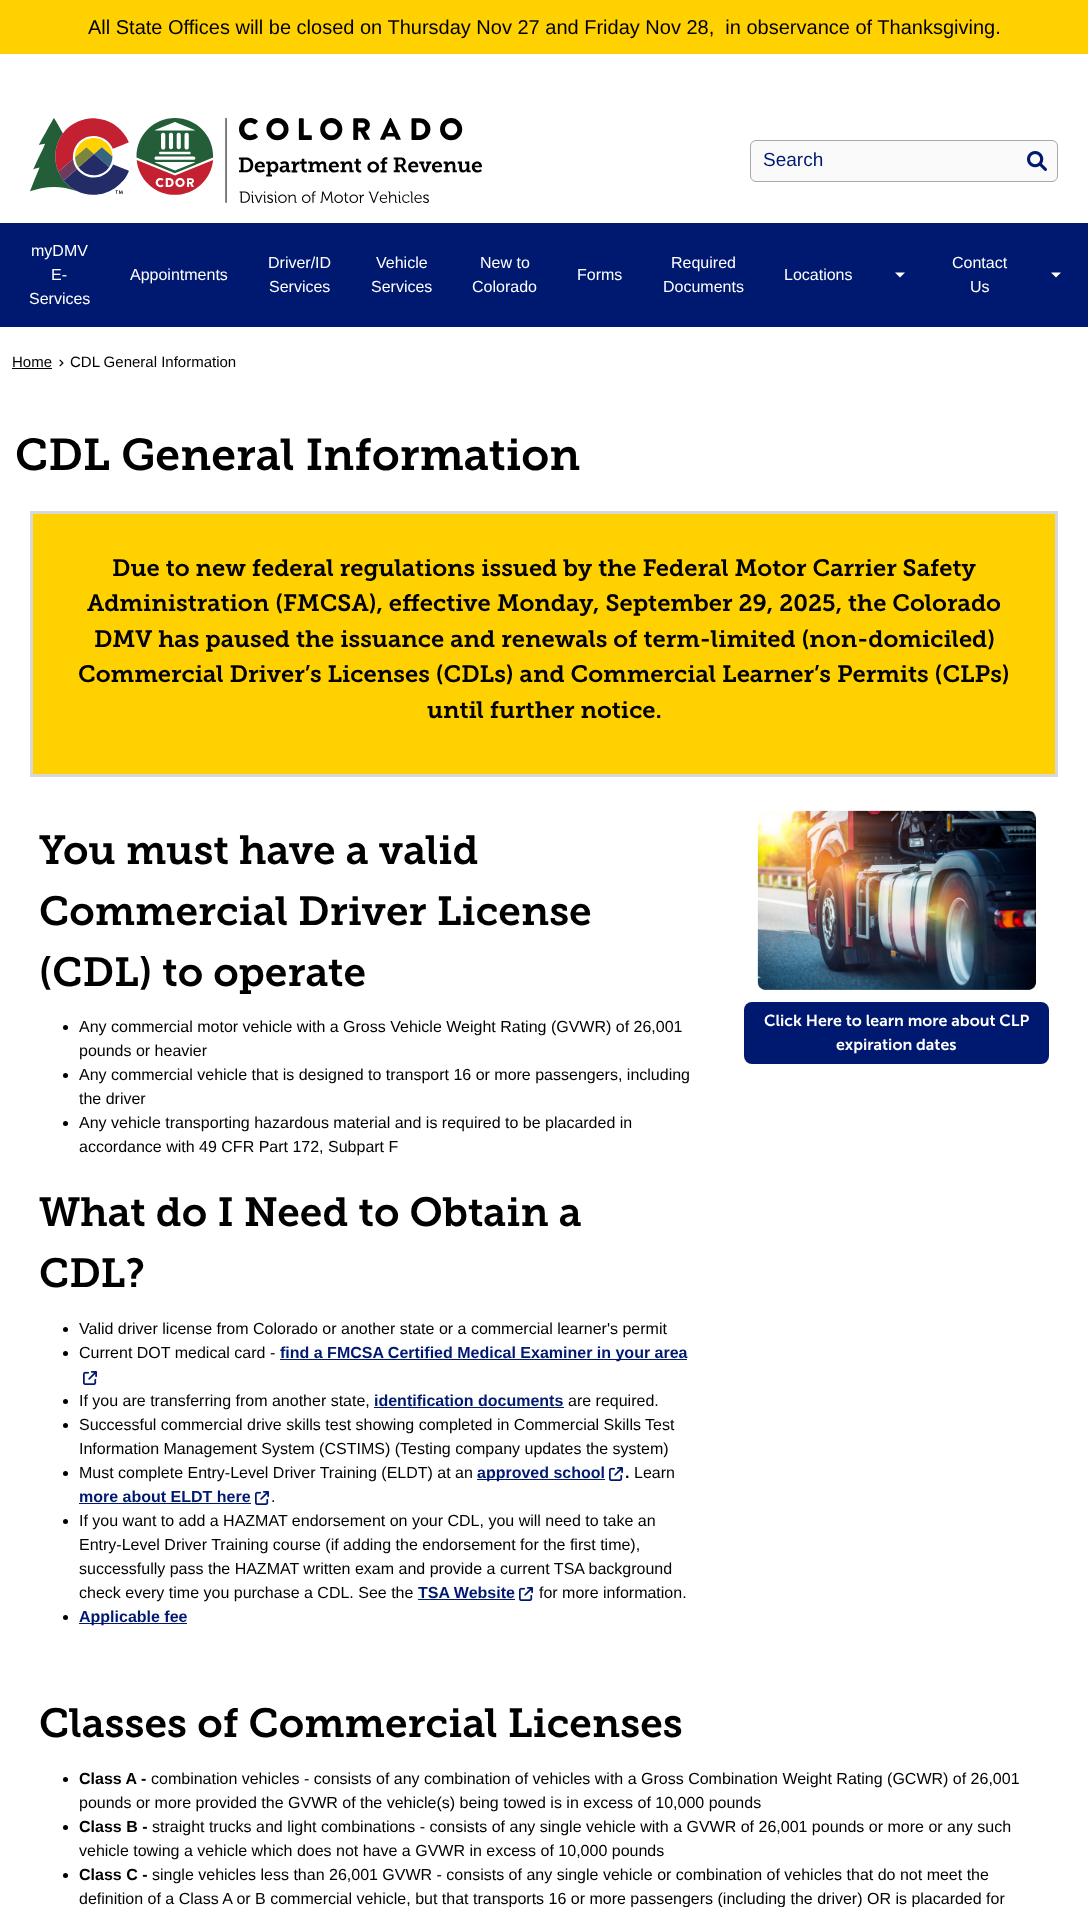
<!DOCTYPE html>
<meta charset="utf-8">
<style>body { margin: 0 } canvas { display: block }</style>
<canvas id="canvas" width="1088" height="1907"></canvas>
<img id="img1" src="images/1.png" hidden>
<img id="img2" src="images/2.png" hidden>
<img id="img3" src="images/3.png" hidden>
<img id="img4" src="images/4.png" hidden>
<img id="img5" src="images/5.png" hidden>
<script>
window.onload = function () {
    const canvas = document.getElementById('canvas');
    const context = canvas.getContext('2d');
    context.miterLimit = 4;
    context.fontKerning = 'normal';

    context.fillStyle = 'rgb(255, 255, 255)';
    context.fillRect(0, 0, 1088, 1907);
    context.fillStyle = 'rgb(255, 209, 0)';
    context.fillRect(0, 0, 1088, 54);
    context.drawImage(document.getElementById('img1'), 30, 118, 452, 85);
    context.fillStyle = 'rgb(250, 250, 250)';
    context.beginPath();
    context.roundRect(750.5, 140.5, 307, 41, 5.5);
    context.fill();
    context.strokeStyle = 'rgb(169, 171, 160)';
    context.stroke();
    context.drawImage(document.getElementById('img2'), 1027, 151, 20, 20);
    context.fillStyle = 'rgb(0, 25, 112)';
    context.fillRect(0, 223, 1088, 104);
    context.fillStyle = 'rgb(255, 255, 255)';
    context.beginPath();
    context.moveTo(895, 272.5);
    context.lineTo(905, 272.5);
    context.lineTo(900, 277.5);
    context.closePath();
    context.fill();
    context.beginPath();
    context.moveTo(1051, 272.5);
    context.lineTo(1061, 272.5);
    context.lineTo(1056, 277.5);
    context.closePath();
    context.fill();
    context.fillStyle = 'rgb(0, 0, 0)';
    context.fillRect(12, 368, 40, 1);
    context.drawImage(document.getElementById('img3'), 59, 359, 5, 8);
    context.fillStyle = 'rgb(255, 209, 0)';
    context.beginPath();
    context.rect(31.5, 512.5, 1025, 263);
    context.fill();
    context.strokeStyle = 'rgb(216, 216, 216)';
    context.lineWidth = 3;
    context.stroke();
    context.fillStyle = 'rgb(0, 0, 0)';
    context.beginPath();
    context.arc(65.5, 1027.5, 2.5, 0, 2 * Math.PI);
    context.fill();
    context.beginPath();
    context.arc(65.5, 1075.5, 2.5, 0, 2 * Math.PI);
    context.fill();
    context.beginPath();
    context.arc(65.5, 1123.5, 2.5, 0, 2 * Math.PI);
    context.fill();
    context.beginPath();
    context.arc(65.5, 1329.5, 2.5, 0, 2 * Math.PI);
    context.fill();
    context.beginPath();
    context.arc(65.5, 1353.5, 2.5, 0, 2 * Math.PI);
    context.fill();
    context.fillStyle = 'rgb(0, 25, 112)';
    context.fillRect(280, 1359, 407, 1);
    context.drawImage(document.getElementById('img4'), 83, 1371, 14, 14);
    context.fillStyle = 'rgb(0, 0, 0)';
    context.beginPath();
    context.arc(65.5, 1401.5, 2.5, 0, 2 * Math.PI);
    context.fill();
    context.fillStyle = 'rgb(0, 25, 112)';
    context.fillRect(374, 1407, 190, 1);
    context.fillStyle = 'rgb(0, 0, 0)';
    context.beginPath();
    context.arc(65.5, 1425.5, 2.5, 0, 2 * Math.PI);
    context.fill();
    context.beginPath();
    context.arc(65.5, 1473.5, 2.5, 0, 2 * Math.PI);
    context.fill();
    context.fillStyle = 'rgb(0, 25, 112)';
    context.fillRect(477, 1479, 128, 1);
    context.drawImage(document.getElementById('img4'), 609, 1467, 14, 14);
    context.fillRect(79, 1503, 172, 1);
    context.drawImage(document.getElementById('img4'), 255, 1491, 14, 14);
    context.fillStyle = 'rgb(0, 0, 0)';
    context.beginPath();
    context.arc(65.5, 1521.5, 2.5, 0, 2 * Math.PI);
    context.fill();
    context.fillStyle = 'rgb(0, 25, 112)';
    context.fillRect(418, 1599, 97, 1);
    context.drawImage(document.getElementById('img4'), 519, 1587, 14, 14);
    context.fillStyle = 'rgb(0, 0, 0)';
    context.beginPath();
    context.arc(65.5, 1617.5, 2.5, 0, 2 * Math.PI);
    context.fill();
    context.fillStyle = 'rgb(0, 25, 112)';
    context.fillRect(79, 1623, 108, 1);
    context.drawImage(document.getElementById('img5'), 757, 810, 279, 180);
    context.beginPath();
    context.roundRect(744, 1002, 305, 62, 8);
    context.fill();
    context.fillStyle = 'rgb(0, 0, 0)';
    context.beginPath();
    context.arc(65.5, 1779.5, 2.5, 0, 2 * Math.PI);
    context.fill();
    context.beginPath();
    context.arc(65.5, 1827.5, 2.5, 0, 2 * Math.PI);
    context.fill();
    context.beginPath();
    context.arc(65.5, 1875.5, 2.5, 0, 2 * Math.PI);
    context.fill();
    context.font = '20px Liberation Sans';
    context.fillText('All State Offices will be closed on Thursday Nov 27 and Friday Nov 28,  in observance of Thanksgiving.', 88, 34);
    context.font = '19px Liberation Sans';
    context.fillStyle = 'rgb(0, 25, 112)';
    context.fillText('Search', 763, 166);
    context.font = '16px Liberation Sans';
    context.fillStyle = 'rgb(255, 255, 255)';
    context.fillText('myDMV', 31, 256);
    context.fillText('E-', 51, 280);
    context.fillText('Services', 29, 304);
    context.fillText('Appointments', 130, 280);
    context.fillText('Driver/ID', 268, 268);
    context.fillText('Services', 269, 292);
    context.fillText('Vehicle', 376, 268);
    context.fillText('Services', 371, 292);
    context.fillText('New to', 480, 268);
    context.fillText('Colorado', 472, 292);
    context.fillText('Forms', 577, 280);
    context.fillText('Required', 671, 268);
    context.fillText('Documents', 663, 292);
    context.fillText('Locations', 784, 280);
    context.fillText('Contact', 952, 268);
    context.fillText('Us', 970, 292);
    context.font = '15px Liberation Sans';
    context.fillStyle = 'rgb(0, 0, 0)';
    context.fillText('Home', 12, 367);
    context.fillText('CDL General Information', 70, 367);
    context.font = '600 44.5px "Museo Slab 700"';
    context.fillText('CDL General Information', 15, 470);
    context.font = '600 23.7px "Museo Slab 700"';
    context.fillText('Due to new federal regulations issued by the Federal Motor Carrier Safety', 112, 576);
    context.fillText('Administration (FMCSA), effective Monday, September 29, 2025, the Colorado', 87, 611);
    context.fillText('DMV has paused the issuance and renewals of term-limited (non-domiciled)', 94, 647);
    context.fillText('Commercial Driver’s Licenses (CDLs) and Commercial Learner’s Permits (CLPs)', 78, 682);
    context.fillText('until further notice.', 427, 718);
    context.font = '600 40.5px "Museo Slab 700"';
    context.fillText('You must have a valid', 39, 864);
    context.fillText('Commercial Driver License', 39, 925);
    context.fillText('(CDL) to operate', 39, 986);
    context.font = '16px Liberation Sans';
    context.fillText('Any commercial motor vehicle with a Gross Vehicle Weight Rating (GVWR) of 26,001', 79, 1032);
    context.fillText('pounds or heavier', 79, 1056);
    context.fillText('Any commercial vehicle that is designed to transport 16 or more passengers, including', 79, 1080);
    context.fillText('the driver', 79, 1104);
    context.fillText('Any vehicle transporting hazardous material and is required to be placarded in', 79, 1128);
    context.fillText('accordance with 49 CFR Part 172, Subpart F', 79, 1152);
    context.font = '600 40.5px "Museo Slab 700"';
    context.fillText('What do I Need to Obtain a', 39, 1226);
    context.fillText('CDL?', 39, 1287);
    context.font = '16px Liberation Sans';
    context.fillText('Valid driver license from Colorado or another state or a commercial learner\'s permit', 79, 1334);
    context.fillText('Current DOT medical card -', 79, 1358);
    context.font = 'bold 16px Liberation Sans';
    context.fillStyle = 'rgb(0, 25, 112)';
    context.fillText('find a FMCSA Certified Medical Examiner in your area', 280, 1358);
    context.font = '16px Liberation Sans';
    context.fillStyle = 'rgb(0, 0, 0)';
    context.fillText('If you are transferring from another state,', 79, 1406);
    context.font = 'bold 16px Liberation Sans';
    context.fillStyle = 'rgb(0, 25, 112)';
    context.fillText('identification documents', 374, 1406);
    context.font = '16px Liberation Sans';
    context.fillStyle = 'rgb(0, 0, 0)';
    context.fillText('are required.', 568, 1406);
    context.fillText('Successful commercial drive skills test showing completed in Commercial Skills Test', 79, 1430);
    context.fillText('Information Management System (CSTIMS) (Testing company updates the system)', 79, 1454);
    context.fillText('Must complete Entry-Level Driver Training (ELDT) at an', 79, 1478);
    context.font = 'bold 16px Liberation Sans';
    context.fillStyle = 'rgb(0, 25, 112)';
    context.fillText('approved school', 477, 1478);
    context.font = '16px Liberation Sans';
    context.fillStyle = 'rgb(0, 0, 0)';
    context.fillText('Learn', 634, 1478);
    context.font = 'bold 16px Liberation Sans';
    context.fillText('.', 625, 1478);
    context.fillStyle = 'rgb(0, 25, 112)';
    context.fillText('more about ELDT here', 79, 1502);
    context.font = '16px Liberation Sans';
    context.fillStyle = 'rgb(0, 0, 0)';
    context.fillText('.', 271, 1502);
    context.fillText('If you want to add a HAZMAT endorsement on your CDL, you will need to take an', 79, 1526);
    context.fillText('Entry-Level Driver Training course (if adding the endorsement for the first time),', 79, 1550);
    context.fillText('successfully pass the HAZMAT written exam and provide a current TSA background', 79, 1574);
    context.fillText('check every time you purchase a CDL. See the', 79, 1598);
    context.font = 'bold 16px Liberation Sans';
    context.fillStyle = 'rgb(0, 25, 112)';
    context.fillText('TSA Website', 418, 1598);
    context.font = '16px Liberation Sans';
    context.fillStyle = 'rgb(0, 0, 0)';
    context.fillText('for more information.', 539, 1598);
    context.font = 'bold 16px Liberation Sans';
    context.fillStyle = 'rgb(0, 25, 112)';
    context.fillText('Applicable fee', 79, 1622);
    context.font = '600 16px "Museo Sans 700"';
    context.fillStyle = 'rgb(255, 255, 255)';
    context.fillText('Click Here to learn more about CLP', 764, 1026);
    context.fillText('expiration dates', 836, 1050);
    context.font = '600 40.5px "Museo Slab 700"';
    context.fillStyle = 'rgb(0, 0, 0)';
    context.fillText('Classes of Commercial Licenses', 39, 1737);
    context.font = 'bold 16px Liberation Sans';
    context.fillText('Class A -', 79, 1784);
    context.font = '16px Liberation Sans';
    context.fillText('combination vehicles - consists of any combination of vehicles with a Gross Combination Weight Rating (GCWR) of 26,001', 151, 1784);
    context.fillText('pounds or more provided the GVWR of the vehicle(s) being towed is in excess of 10,000 pounds', 79, 1808);
    context.font = 'bold 16px Liberation Sans';
    context.fillText('Class B -', 79, 1832);
    context.font = '16px Liberation Sans';
    context.fillText('straight trucks and light combinations - consists of any single vehicle with a GVWR of 26,001 pounds or more or any such', 152, 1832);
    context.fillText('vehicle towing a vehicle which does not have a GVWR in excess of 10,000 pounds', 79, 1856);
    context.font = 'bold 16px Liberation Sans';
    context.fillText('Class C -', 79, 1880);
    context.font = '16px Liberation Sans';
    context.fillText('single vehicles less than 26,001 GVWR - consists of any single vehicle or combination of vehicles that do not meet the', 152, 1880);
    context.fillText('definition of a Class A or B commercial vehicle, but that transports 16 or more passengers (including the driver) OR is placarded for', 79, 1904);
};
</script>
